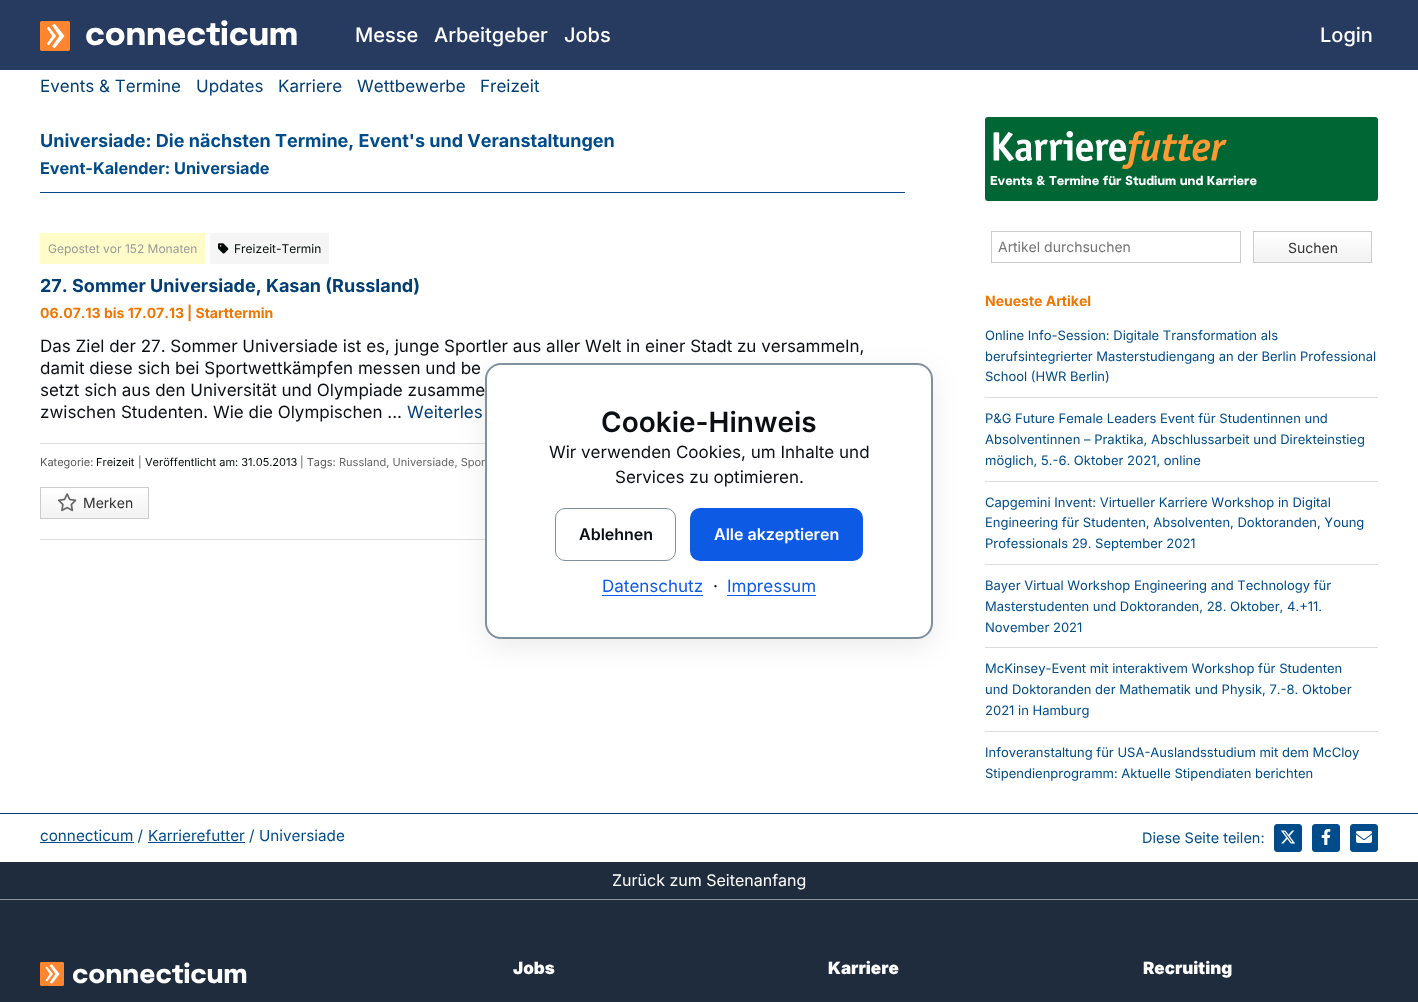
<!DOCTYPE html>
<meta charset="utf-8">
<style>body { margin: 0 } canvas { display: block }</style>
<canvas id="canvas" width="1418" height="1002"></canvas>
<img id="img1" src="images/1.png" hidden>
<img id="img2" src="images/2.png" hidden>
<img id="img3" src="images/3.png" hidden>
<img id="img4" src="images/4.png" hidden>
<img id="img5" src="images/5.png" hidden>
<img id="img6" src="images/6.png" hidden>
<img id="img7" src="images/7.png" hidden>
<img id="img8" src="images/8.png" hidden>
<script>
window.onload = function () {
    const canvas = document.getElementById('canvas');
    const context = canvas.getContext('2d');
    context.miterLimit = 4;
    context.fontKerning = 'none';
    let gradient;

    context.fillStyle = 'rgb(255, 255, 255)';
    context.fillRect(0, 0, 1418, 1002);
    context.fillStyle = 'rgb(39, 58, 96)';
    context.fillRect(0, 0, 1418, 70);
    context.drawImage(document.getElementById('img1'), 40, 21, 30, 30);
    context.fillStyle = 'rgb(0, 75, 138)';
    context.fillRect(40, 192, 865, 1);
    context.fillStyle = 'rgb(255, 252, 202)';
    context.fillRect(40, 233, 165, 31);
    context.fillStyle = 'rgb(245, 245, 245)';
    context.fillRect(210, 233, 119, 31);
    context.drawImage(document.getElementById('img2'), 218, 243, 11, 11);
    context.fillStyle = 'rgb(221, 221, 221)';
    context.fillRect(40, 443, 445, 1);
    context.fillRect(40, 539, 445, 1);
    gradient = context.createLinearGradient(95, 488, 95, 518);
    gradient.addColorStop(0, 'rgb(255, 255, 255)');
    gradient.addColorStop(1, 'rgb(242, 242, 242)');
    context.fillStyle = gradient;
    context.fillRect(41, 494, 107, 24);
    context.strokeStyle = 'rgb(204, 204, 204)';
    context.strokeRect(40.5, 487.5, 108, 31);
    context.drawImage(document.getElementById('img3'), 57, 493, 20, 19);
    context.fillStyle = 'rgb(0, 102, 51)';
    context.beginPath();
    context.roundRect(985, 117, 393, 84, 3);
    context.fill();
    context.drawImage(document.getElementById('img4'), 993, 130, 234, 39);
    context.strokeRect(991.5, 231.5, 249, 31);
    gradient = context.createLinearGradient(1313, 232, 1313, 262);
    gradient.addColorStop(0, 'rgb(255, 255, 255)');
    gradient.addColorStop(1, 'rgb(242, 242, 242)');
    context.fillStyle = gradient;
    context.fillRect(1254, 238, 117, 24);
    context.strokeRect(1253.5, 231.5, 118, 31);
    context.fillStyle = 'rgb(221, 221, 221)';
    context.fillRect(985, 397, 393, 1);
    context.fillRect(985, 481, 393, 1);
    context.fillRect(985, 564, 393, 1);
    context.fillRect(985, 647, 393, 1);
    context.fillRect(985, 731, 393, 1);
    context.fillStyle = 'rgba(0, 0, 0, 0.08)';
    context.filter = 'blur(14px)';
    context.beginPath();
    context.roundRect(485, 371, 448, 276, 16);
    context.fill();
    context.filter = 'none';
    context.fillStyle = 'rgb(255, 255, 255)';
    context.beginPath();
    context.roundRect(486, 364, 446, 274, 15);
    context.fill();
    context.strokeStyle = 'rgb(129, 144, 159)';
    context.lineWidth = 2;
    context.stroke();
    context.beginPath();
    context.roundRect(555.5, 508.5, 120, 52, 9.5);
    context.lineWidth = 1;
    context.stroke();
    context.fillStyle = 'rgb(13, 90, 229)';
    context.beginPath();
    context.roundRect(690, 508, 173, 53, 10);
    context.fill();
    context.fillRect(602, 595, 101, 1);
    context.fillRect(727, 595, 89, 1);
    context.fillStyle = 'rgb(31, 44, 61)';
    context.fillRect(0, 862, 1418, 140);
    context.fillStyle = 'rgb(2, 62, 115)';
    context.fillRect(0, 813, 1418, 1);
    context.fillStyle = 'rgb(0, 75, 138)';
    context.fillRect(40, 842, 94, 1);
    context.fillRect(148, 842, 97, 1);
    context.beginPath();
    context.roundRect(1274.5, 824.5, 27, 27, 2.5);
    context.fill();
    context.strokeStyle = 'rgb(0, 75, 138)';
    context.stroke();
    context.drawImage(document.getElementById('img5'), 1281, 830, 15, 14);
    context.beginPath();
    context.roundRect(1312.5, 824.5, 27, 27, 2.5);
    context.fill();
    context.stroke();
    context.drawImage(document.getElementById('img6'), 1321, 829, 10, 16);
    context.beginPath();
    context.roundRect(1350.5, 824.5, 27, 27, 2.5);
    context.fill();
    context.stroke();
    context.drawImage(document.getElementById('img7'), 1356, 831, 16, 12);
    context.fillStyle = 'rgb(143, 150, 158)';
    context.fillRect(0, 899, 1418, 1);
    context.drawImage(document.getElementById('img8'), 40, 962, 24, 24);
    context.font = '900 34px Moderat';
    context.fillStyle = 'rgb(255, 255, 255)';
    context.fillText('connecticum', 85, 45);
    context.font = '500 20px Inter';
    context.fillText('Messe', 355, 42);
    context.fillText('Arbeitgeber', 434, 42);
    context.fillText('Jobs', 564, 42);
    context.fillText('Login', 1320, 42);
    context.font = '17px Inter';
    context.fillStyle = 'rgb(2, 62, 115)';
    context.fillText('Events & Termine', 40, 92);
    context.fillText('Updates', 196, 92);
    context.fillText('Karriere', 278, 92);
    context.fillText('Wettbewerbe', 357, 92);
    context.fillText('Freizeit', 480, 92);
    context.font = 'bold 18px Inter';
    context.fillStyle = 'rgb(0, 75, 138)';
    context.fillText('Universiade: Die nächsten Termine, Event\'s und Veranstaltungen', 40, 147);
    context.font = 'bold 16.25px Inter';
    context.fillText('Event-Kalender: Universiade', 40, 174);
    context.font = '12px Inter';
    context.fillStyle = 'rgb(153, 153, 153)';
    context.fillText('Gepostet vor 152 Monaten', 48, 253);
    context.fillStyle = 'rgb(0, 8, 6)';
    context.fillText('Freizeit-Termin', 234, 253);
    context.font = 'bold 18px Inter';
    context.fillStyle = 'rgb(2, 62, 115)';
    context.fillText('27. Sommer Universiade, Kasan (Russland)', 40, 292);
    context.font = 'bold 14px Inter';
    context.fillStyle = 'rgb(240, 118, 0)';
    context.fillText('06.07.13', 40, 318);
    context.fillText('bis 17.07.13', 104, 318);
    context.fillText('| Starttermin', 187, 318);
    context.font = '17px Inter';
    context.fillStyle = 'rgb(11, 15, 20)';
    context.fillText('Das Ziel der 27. Sommer Universiade ist es, junge Sportler aus aller Welt in einer Stadt zu versammeln,', 40, 352);
    context.fillText('damit diese sich bei Sportwettkämpfen messen und be', 40, 374);
    context.fillText('setzt sich aus den Universität und Olympiade zusamme', 40, 396);
    context.fillText('zwischen Studenten. Wie die Olympischen ...', 40, 418);
    context.fillStyle = 'rgb(2, 62, 115)';
    context.fillText('Weiterles', 407, 418);
    context.font = '11px Inter';
    context.fillStyle = 'rgb(87, 87, 86)';
    context.fillText('Kategorie:', 40, 466);
    context.fillStyle = 'rgb(0, 8, 6)';
    context.fillText('Freizeit', 96, 466);
    context.fillStyle = 'rgb(87, 87, 86)';
    context.fillText('|', 138, 466);
    context.fillStyle = 'rgb(0, 8, 6)';
    context.fillText('Veröffentlicht am: 31.05.2013', 145, 466);
    context.fillStyle = 'rgb(87, 87, 86)';
    context.fillText('| Tags:', 300, 466);
    context.fillStyle = 'rgb(102, 102, 102)';
    context.fillText('Russland, Universiade, Spor', 339, 466);
    context.font = '14px Inter';
    context.fillStyle = 'rgb(51, 51, 51)';
    context.fillText('Merken', 83, 508);
    context.font = '900 13px Moderat';
    context.fillStyle = 'rgb(255, 255, 255)';
    context.fillText('Events & Termine für Studium und Karriere', 990, 185);
    context.font = '14px Inter';
    context.fillStyle = 'rgb(117, 117, 117)';
    context.fillText('Artikel durchsuchen', 998, 252);
    context.fillStyle = 'rgb(51, 51, 51)';
    context.fillText('Suchen', 1288, 253);
    context.font = 'bold 14px Inter';
    context.fillStyle = 'rgb(240, 118, 0)';
    context.fillText('Neueste Artikel', 985, 306);
    context.font = '13px Inter';
    context.fillStyle = 'rgb(0, 75, 138)';
    context.fillText('Online Info-Session: Digitale Transformation als', 985, 340);
    context.fillText('berufsintegrierter Masterstudiengang an der Berlin Professional', 985, 361);
    context.fillText('School (HWR Berlin)', 985, 381);
    context.fillText('P&G Future Female Leaders Event für Studentinnen und', 985, 423);
    context.fillText('Absolventinnen – Praktika, Abschlussarbeit und Direkteinstieg', 985, 444);
    context.fillText('möglich, 5.-6. Oktober 2021, online', 985, 465);
    context.fillText('Capgemini Invent: Virtueller Karriere Workshop in Digital', 985, 507);
    context.fillText('Engineering für Studenten, Absolventen, Doktoranden, Young', 985, 527);
    context.fillText('Professionals 29. September 2021', 985, 548);
    context.fillText('Bayer Virtual Workshop Engineering and Technology für', 985, 590);
    context.fillText('Masterstudenten und Doktoranden, 28. Oktober, 4.+11.', 985, 611);
    context.fillText('November 2021', 985, 632);
    context.fillText('McKinsey-Event mit interaktivem Workshop für Studenten', 985, 673);
    context.fillText('und Doktoranden der Mathematik und Physik, 7.-8. Oktober', 985, 694);
    context.fillText('2021 in Hamburg', 985, 715);
    context.fillText('Infoveranstaltung für USA-Auslandsstudium mit dem McCloy', 985, 757);
    context.fillText('Stipendienprogramm: Aktuelle Stipendiaten berichten', 985, 778);
    context.font = '600 28px Inter';
    context.fillStyle = 'rgb(11, 15, 20)';
    context.fillText('Cookie-Hinweis', 601, 432);
    context.font = '17px Inter';
    context.fillText('Wir verwenden Cookies, um Inhalte und', 549, 458);
    context.fillText('Services zu optimieren.', 615, 483);
    context.font = '600 16px Inter';
    context.fillText('Ablehnen', 579, 540);
    context.fillStyle = 'rgb(255, 255, 255)';
    context.fillText('Alle akzeptieren', 714, 540);
    context.font = '17px Inter';
    context.fillStyle = 'rgb(13, 90, 229)';
    context.fillText('Datenschutz', 602, 592);
    context.fillStyle = 'rgb(11, 15, 20)';
    context.fillText('·', 713, 592);
    context.fillStyle = 'rgb(13, 90, 229)';
    context.fillText('Impressum', 727, 592);
    context.font = '15.25px "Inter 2"';
    context.fillStyle = 'rgb(0, 75, 138)';
    context.fillText('connecticum /', 40, 841);
    context.fillText('Karrierefutter /', 148, 841);
    context.fillText('Universiade', 259, 841);
    context.font = '14.5px Inter';
    context.fillText('Diese Seite teilen:', 1142, 843);
    context.font = '16px Inter';
    context.fillStyle = 'rgb(255, 255, 255)';
    context.fillText('Zurück zum Seitenanfang', 612, 886);
    context.font = '900 28px Moderat';
    context.fillText('connecticum', 72, 983);
    context.font = '900 17px Inter';
    context.fillText('Jobs', 513, 974);
    context.fillText('Karriere', 828, 974);
    context.fillText('Recruiting', 1143, 974);
};
</script>
